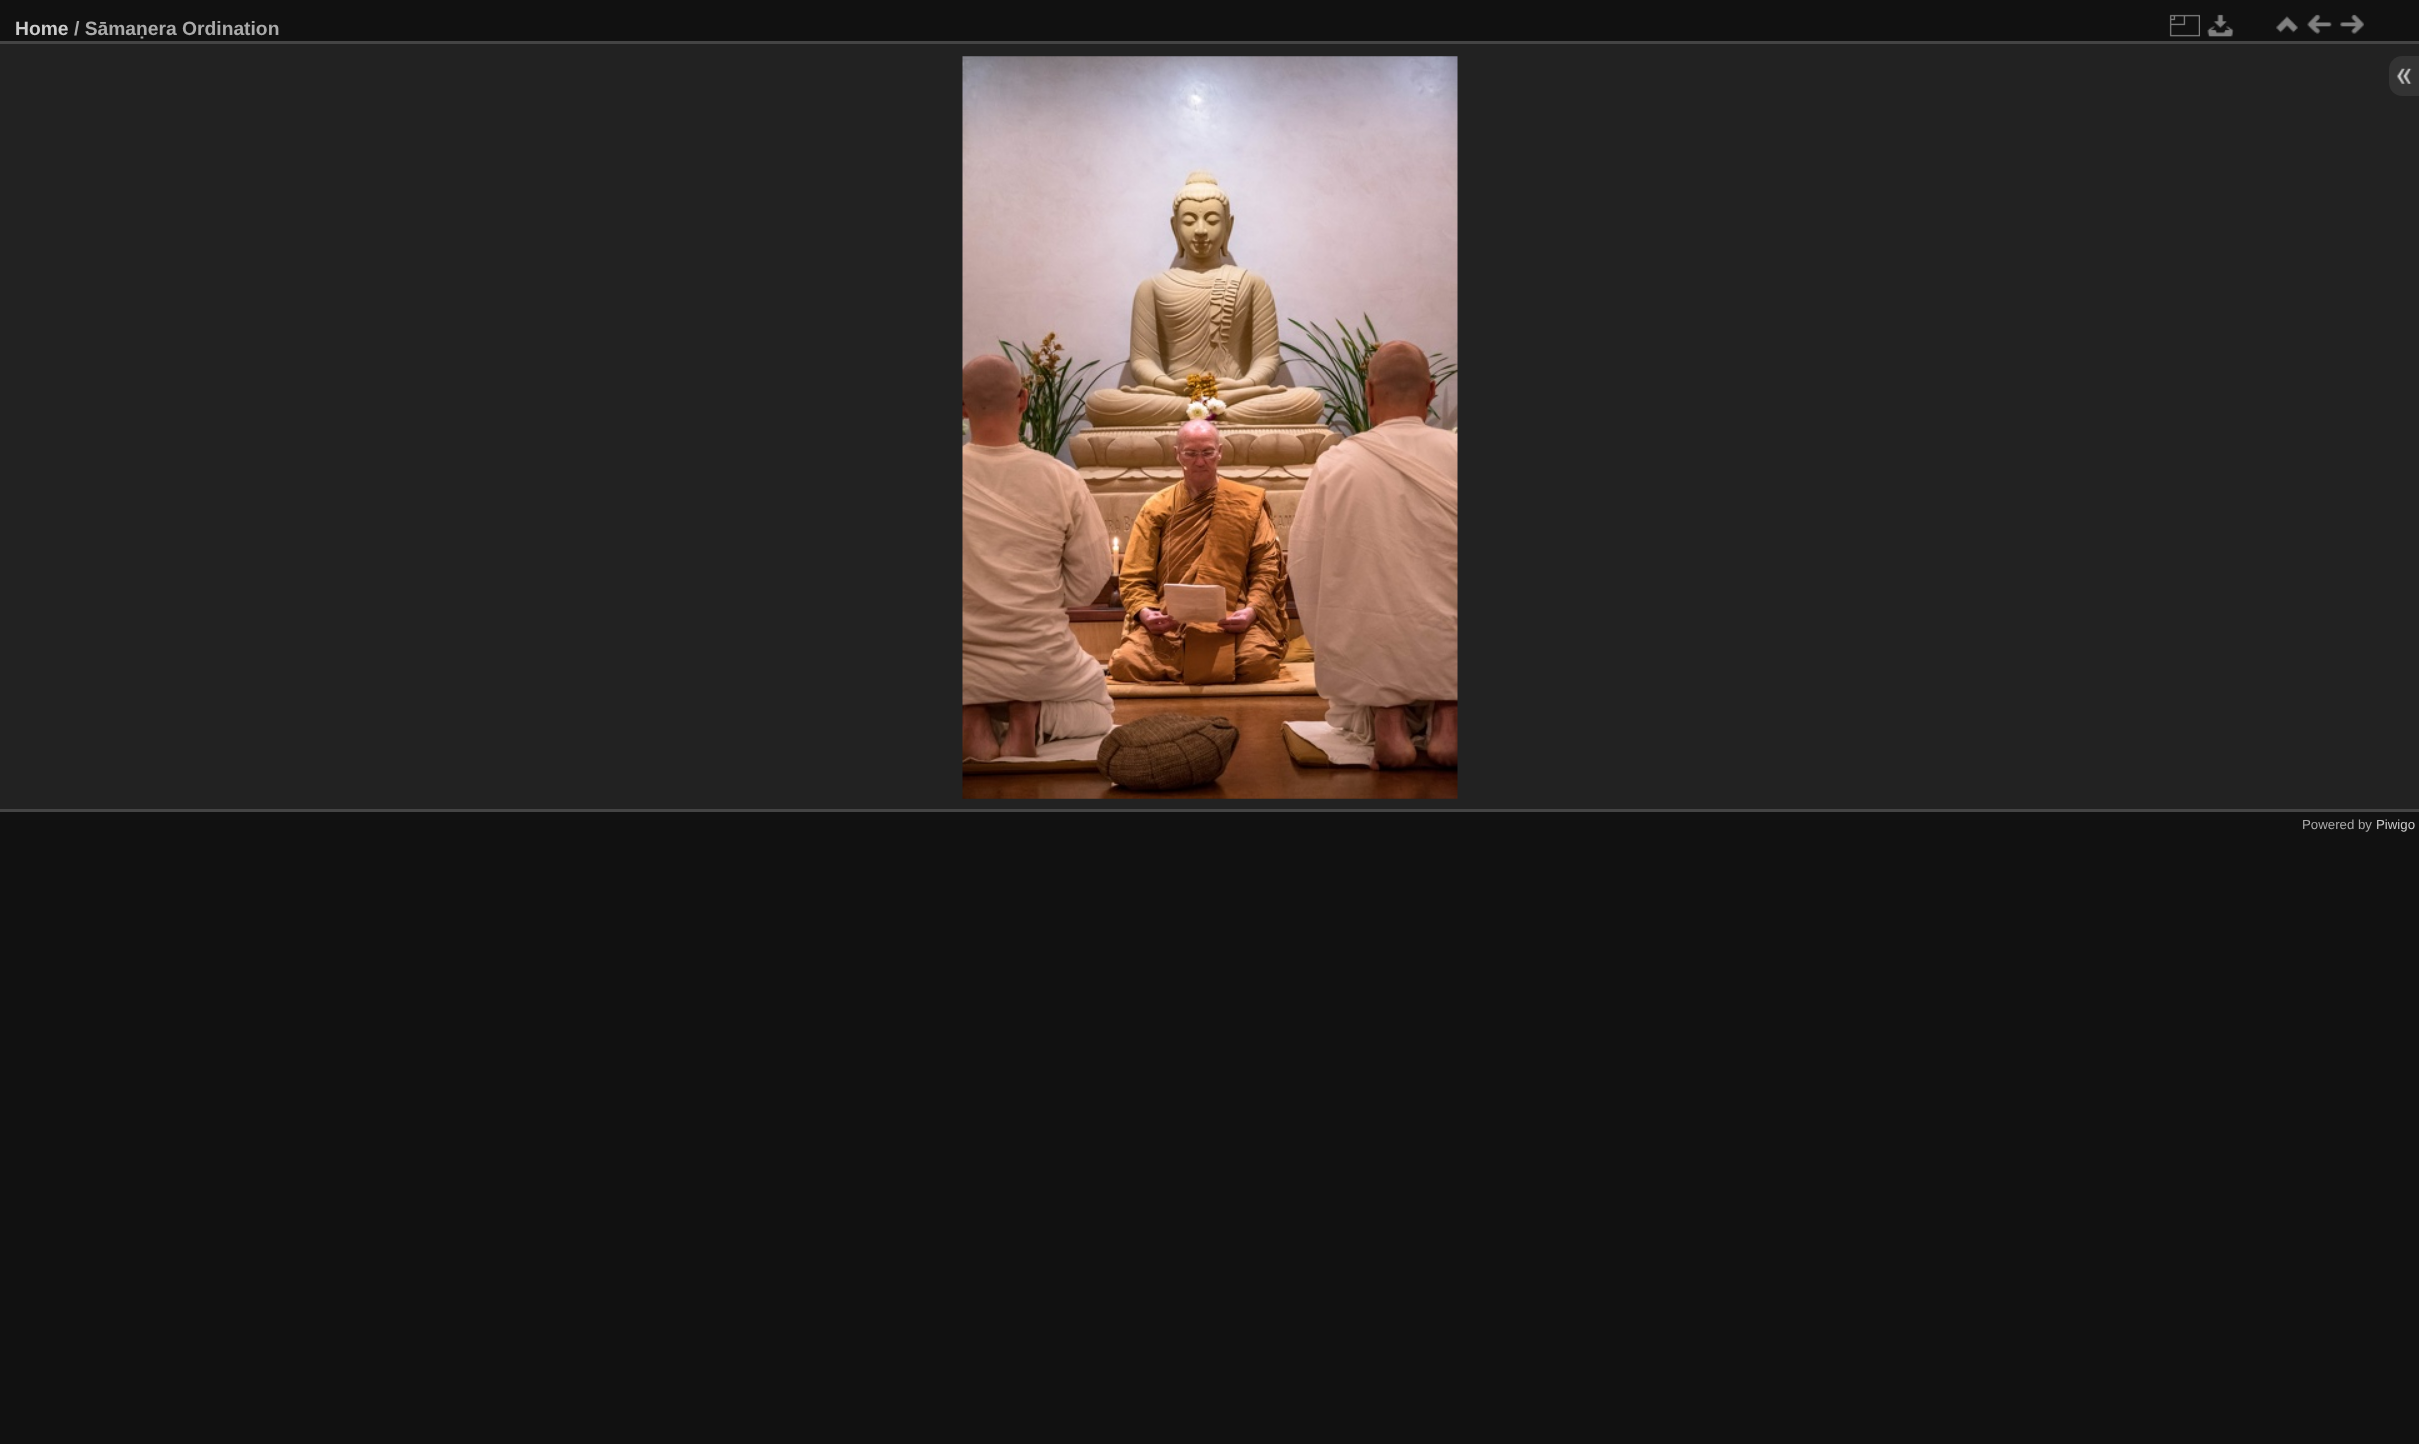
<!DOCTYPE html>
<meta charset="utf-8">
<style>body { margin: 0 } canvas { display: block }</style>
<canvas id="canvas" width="2419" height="1444"></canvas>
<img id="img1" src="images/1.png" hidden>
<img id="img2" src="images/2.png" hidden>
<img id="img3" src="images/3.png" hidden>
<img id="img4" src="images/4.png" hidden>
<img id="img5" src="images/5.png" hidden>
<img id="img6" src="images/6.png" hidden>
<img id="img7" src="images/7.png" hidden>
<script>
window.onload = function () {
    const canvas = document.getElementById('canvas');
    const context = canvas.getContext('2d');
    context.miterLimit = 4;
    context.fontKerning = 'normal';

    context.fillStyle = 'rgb(17, 17, 17)';
    context.fillRect(0, 0, 2419, 1444);
    context.fillStyle = 'rgb(34, 34, 34)';
    context.fillRect(0, 44, 2419, 765);
    context.fillStyle = 'rgb(68, 68, 68)';
    context.fillRect(0, 809, 2419, 3);
    context.fillRect(0, 41, 2419, 3);
    context.drawImage(document.getElementById('img1'), 2169, 14, 31, 23);
    context.drawImage(document.getElementById('img2'), 2207, 14, 27, 23);
    context.drawImage(document.getElementById('img3'), 2276, 16, 22, 17);
    context.drawImage(document.getElementById('img4'), 2307, 14, 25, 20);
    context.drawImage(document.getElementById('img5'), 2340, 14, 24, 20);
    context.drawImage(document.getElementById('img6'), 962, 56, 496, 743);
    context.fillStyle = 'rgb(51, 51, 51)';
    context.beginPath();
    context.moveTo(2402, 56);
    context.lineTo(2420, 56);
    context.lineTo(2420, 96);
    context.lineTo(2402, 96);
    context.bezierCurveTo(2395, 96, 2389, 90, 2389, 83);
    context.lineTo(2389, 69);
    context.bezierCurveTo(2389, 62, 2395, 56, 2402, 56);
    context.closePath();
    context.fill();
    context.drawImage(document.getElementById('img7'), 2396, 68, 16, 16);
    context.font = 'bold 19.25px Liberation Sans';
    context.fillStyle = 'rgb(204, 204, 204)';
    context.fillText('Home', 15, 35);
    context.fillStyle = 'rgb(170, 170, 170)';
    context.fillText('/ Sāmaṇera Ordination', 74, 35);
    context.font = '13.25px Liberation Sans';
    context.fillText('Powered by', 2302, 829);
    context.fillStyle = 'rgb(204, 204, 204)';
    context.fillText('Piwigo', 2376, 829);
};
</script>
